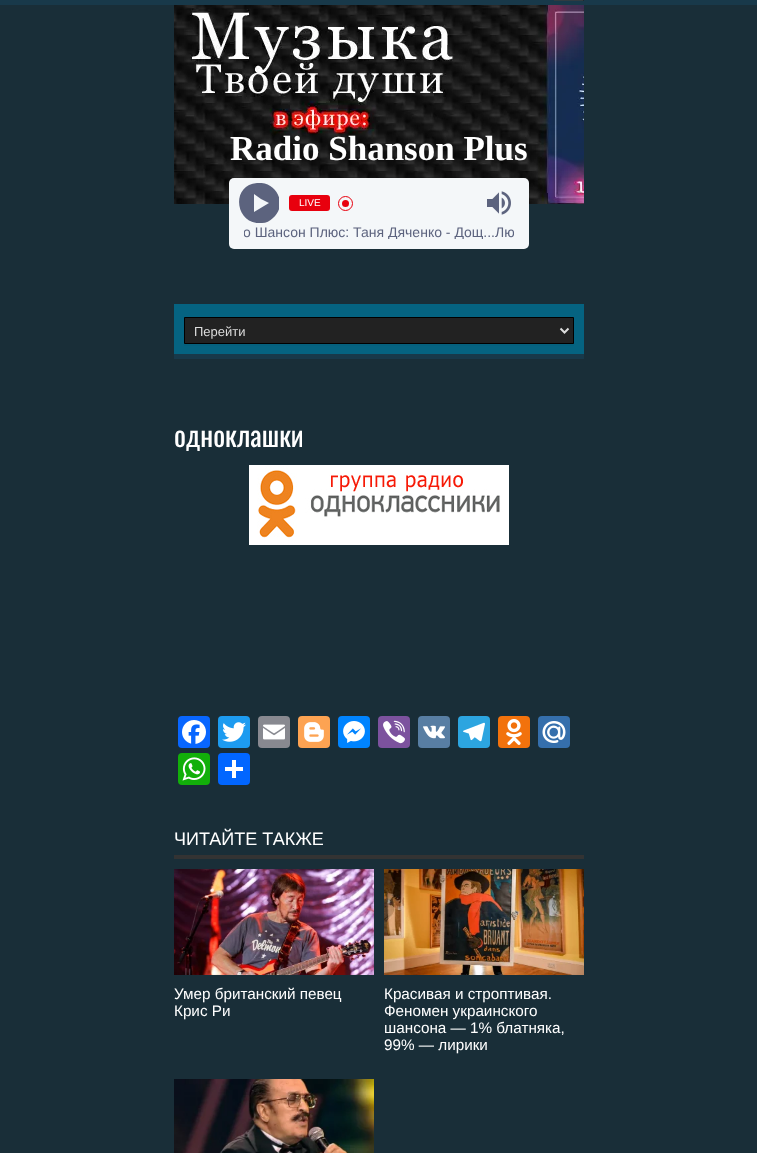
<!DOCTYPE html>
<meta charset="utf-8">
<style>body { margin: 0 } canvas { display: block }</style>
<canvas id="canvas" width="757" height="1153"></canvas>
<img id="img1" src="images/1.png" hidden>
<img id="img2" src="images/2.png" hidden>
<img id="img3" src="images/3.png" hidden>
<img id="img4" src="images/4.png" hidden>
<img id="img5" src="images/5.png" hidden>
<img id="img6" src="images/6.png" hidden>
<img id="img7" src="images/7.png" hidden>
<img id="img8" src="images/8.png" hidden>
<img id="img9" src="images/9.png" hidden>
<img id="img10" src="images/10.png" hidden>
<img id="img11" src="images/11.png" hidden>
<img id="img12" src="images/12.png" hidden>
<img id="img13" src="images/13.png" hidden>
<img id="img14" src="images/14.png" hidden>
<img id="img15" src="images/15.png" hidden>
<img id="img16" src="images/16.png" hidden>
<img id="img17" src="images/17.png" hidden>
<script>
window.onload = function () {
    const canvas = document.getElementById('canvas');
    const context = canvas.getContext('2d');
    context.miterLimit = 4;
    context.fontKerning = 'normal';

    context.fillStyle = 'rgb(25, 46, 56)';
    context.fillRect(0, 0, 757, 1153);
    context.fillStyle = 'rgb(24, 57, 74)';
    context.fillRect(0, 0, 757, 5);
    context.fillStyle = 'rgb(49, 59, 64)';
    context.fillRect(554, 0, 30, 1);
    context.fillStyle = 'rgb(31, 41, 46)';
    context.fillRect(583, 0, 1, 1);
    context.drawImage(document.getElementById('img1'), 174, 5, 410, 199);
    context.fillStyle = 'rgb(244, 247, 249)';
    context.beginPath();
    context.roundRect(229, 178, 300, 71, 5);
    context.fill();
    context.save();
    context.beginPath();
    context.rect(238, 183, 41, 40);
    context.clip();
    context.fillStyle = 'rgb(92, 99, 126)';
    context.beginPath();
    context.moveTo(257, 183);
    context.bezierCurveTo(230, 185, 235, 226, 262, 223);
    context.bezierCurveTo(266, 223, 270, 221, 273, 218);
    context.bezierCurveTo(288, 205, 277, 181, 257, 183);
    context.closePath();
    context.moveTo(261, 199);
    context.lineTo(269, 203);
    context.lineTo(254, 212);
    context.lineTo(254, 194);
    context.closePath();
    context.fill();
    context.restore();
    context.fillStyle = 'rgb(232, 0, 14)';
    context.beginPath();
    context.roundRect(289, 195, 41, 16, 3);
    context.fill();
    context.beginPath();
    context.arc(345.5, 203.5, 3.5, 0, 2 * Math.PI);
    context.fill();
    context.beginPath();
    context.arc(345.5, 203.5, 7, 0, 2 * Math.PI);
    context.strokeStyle = 'rgb(232, 0, 14)';
    context.stroke();
    context.drawImage(document.getElementById('img2'), 487, 191, 24, 24);
    context.fillStyle = 'rgb(5, 99, 129)';
    context.fillRect(174, 304, 410, 50);
    context.fillStyle = 'rgb(24, 57, 74)';
    context.fillRect(174, 354, 410, 5);
    context.fillStyle = 'rgb(5, 96, 125)';
    context.fillRect(184, 344, 390, 2);
    context.fillStyle = 'rgb(34, 34, 34)';
    context.beginPath();
    context.rect(184.5, 317.5, 389, 26);
    context.fill();
    context.strokeStyle = 'rgb(0, 0, 0)';
    context.stroke();
    context.beginPath();
    context.moveTo(560.5, 328.5);
    context.lineTo(564.5, 332.5);
    context.lineTo(568.5, 328.5);
    context.strokeStyle = 'rgb(221, 221, 221)';
    context.lineWidth = 2;
    context.stroke();
    context.drawImage(document.getElementById('img3'), 249, 465, 260, 80);
    context.fillStyle = 'rgb(8, 102, 255)';
    context.beginPath();
    context.roundRect(178, 716, 32, 32, 4);
    context.fill();
    context.drawImage(document.getElementById('img4'), 182, 720, 24, 24);
    context.fillStyle = 'rgb(29, 155, 240)';
    context.beginPath();
    context.roundRect(218, 716, 32, 32, 4);
    context.fill();
    context.drawImage(document.getElementById('img5'), 222, 722, 24, 20);
    context.fillStyle = 'rgb(136, 137, 144)';
    context.beginPath();
    context.roundRect(258, 716, 32, 32, 4);
    context.fill();
    context.drawImage(document.getElementById('img6'), 263, 724, 22, 16);
    context.fillStyle = 'rgb(253, 163, 82)';
    context.beginPath();
    context.roundRect(298, 716, 32, 32, 4);
    context.fill();
    context.drawImage(document.getElementById('img7'), 304, 722, 20, 20);
    context.fillStyle = 'rgb(0, 132, 255)';
    context.beginPath();
    context.roundRect(338, 716, 32, 32, 4);
    context.fill();
    context.drawImage(document.getElementById('img8'), 343, 721, 22, 22);
    context.fillStyle = 'rgb(124, 82, 158)';
    context.beginPath();
    context.roundRect(378, 716, 32, 32, 4);
    context.fill();
    context.drawImage(document.getElementById('img9'), 383, 720, 22, 24);
    context.fillStyle = 'rgb(88, 126, 163)';
    context.beginPath();
    context.roundRect(418, 716, 32, 32, 4);
    context.fill();
    context.drawImage(document.getElementById('img10'), 423, 725, 22, 14);
    context.fillStyle = 'rgb(44, 165, 224)';
    context.beginPath();
    context.roundRect(458, 716, 32, 32, 4);
    context.fill();
    context.drawImage(document.getElementById('img11'), 463, 722, 22, 20);
    context.fillStyle = 'rgb(242, 114, 12)';
    context.beginPath();
    context.roundRect(498, 716, 32, 32, 4);
    context.fill();
    context.drawImage(document.getElementById('img12'), 506, 719, 16, 26);
    context.fillStyle = 'rgb(53, 111, 172)';
    context.beginPath();
    context.roundRect(538, 716, 32, 32, 4);
    context.fill();
    context.drawImage(document.getElementById('img13'), 542, 721, 24, 22);
    context.fillStyle = 'rgb(18, 175, 10)';
    context.beginPath();
    context.roundRect(178, 753, 32, 32, 4);
    context.fill();
    context.drawImage(document.getElementById('img14'), 182, 757, 24, 24);
    context.fillStyle = 'rgb(1, 102, 255)';
    context.beginPath();
    context.roundRect(218, 753, 32, 32, 4);
    context.fill();
    context.fillStyle = 'rgb(255, 255, 255)';
    context.fillRect(232, 760, 4, 18);
    context.fillRect(225, 767, 18, 4);
    context.fillStyle = 'rgb(51, 51, 51)';
    context.fillRect(174, 855, 410, 4);
    context.drawImage(document.getElementById('img15'), 174, 869, 200, 106);
    context.drawImage(document.getElementById('img16'), 384, 869, 200, 106);
    context.drawImage(document.getElementById('img17'), 174, 1079, 200, 74);
    context.font = 'bold 35px Liberation Serif';
    context.fillStyle = 'rgb(255, 255, 255)';
    context.fillText('Radio Shanson Plus', 230, 160);
    context.font = '10px Liberation Sans';
    context.fillText('LIVE', 299, 206);
    context.save();
    context.beginPath();
    context.rect(244, 225, 270, 14);
    context.clip();
    context.font = '14px Liberation Sans';
    context.fillStyle = 'rgb(92, 99, 126)';
    context.fillText('о Шансон Плюс: Таня Дяченко - Дощ...Лю', 243, 237);
    context.restore();
    context.font = '13px Liberation Sans';
    context.fillStyle = 'rgb(221, 221, 221)';
    context.fillText('Перейти', 194, 336);
    context.font = '28px Oswald';
    context.fillStyle = 'rgb(255, 255, 255)';
    context.fillText('одноклашки', 174, 447);
    context.font = '18px Liberation Sans';
    context.fillText('ЧИТАЙТЕ ТАКЖЕ', 174, 845);
    context.font = '15.25px Liberation Sans';
    context.fillText('Умер британский певец', 174, 999);
    context.fillText('Крис Ри', 174, 1016);
    context.fillText('Красивая и строптивая.', 384, 999);
    context.fillText('Феномен украинского', 384, 1016);
    context.fillText('шансона — 1% блатняка,', 384, 1033);
    context.fillText('99% — лирики', 384, 1050);
};
</script>
